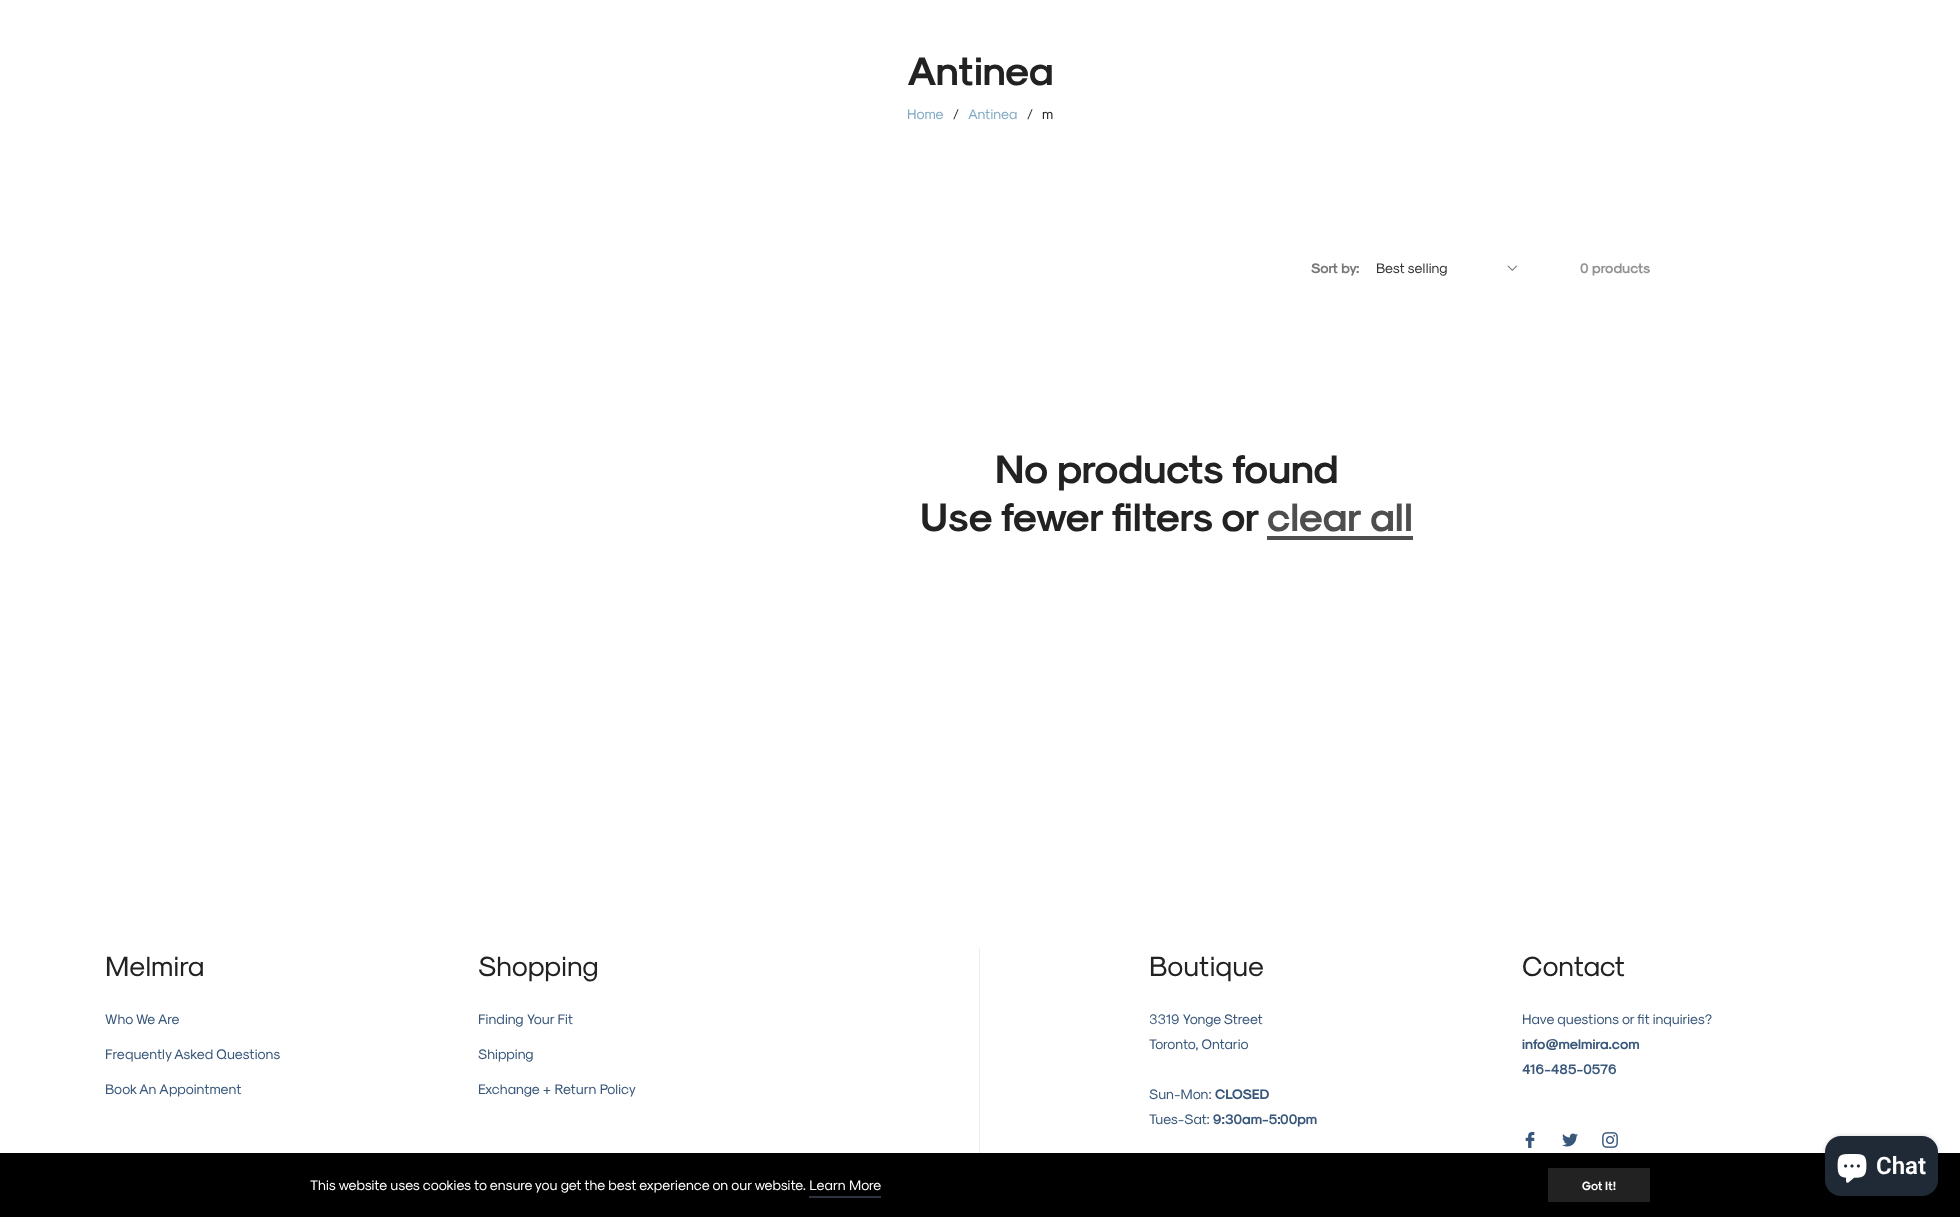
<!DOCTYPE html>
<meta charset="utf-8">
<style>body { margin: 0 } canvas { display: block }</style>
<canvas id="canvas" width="1960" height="1217"></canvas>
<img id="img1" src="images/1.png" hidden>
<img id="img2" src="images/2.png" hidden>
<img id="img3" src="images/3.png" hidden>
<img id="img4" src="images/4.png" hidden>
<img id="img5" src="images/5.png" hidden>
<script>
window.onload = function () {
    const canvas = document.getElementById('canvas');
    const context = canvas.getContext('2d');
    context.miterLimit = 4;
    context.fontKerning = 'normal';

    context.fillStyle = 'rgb(255, 255, 255)';
    context.fillRect(0, 0, 1960, 1217);
    context.drawImage(document.getElementById('img1'), 1507, 265, 10, 6);
    context.fillStyle = 'rgb(78, 78, 78)';
    context.fillRect(1267, 536, 146, 4);
    context.fillStyle = 'rgb(236, 236, 236)';
    context.fillRect(979, 948, 1, 205);
    context.drawImage(document.getElementById('img2'), 1525, 1132, 10, 16);
    context.drawImage(document.getElementById('img3'), 1562, 1133, 16, 14);
    context.drawImage(document.getElementById('img4'), 1602, 1132, 16, 16);
    context.fillStyle = 'rgb(0, 0, 0)';
    context.fillRect(0, 1153, 1960, 64);
    context.fillStyle = 'rgba(0, 0, 0, 0.15)';
    context.filter = 'blur(2.5px)';
    context.beginPath();
    context.roundRect(1825, 1136, 113, 60, 16);
    context.fill();
    context.filter = 'none';
    context.fillStyle = 'rgb(32, 42, 54)';
    context.beginPath();
    context.roundRect(1825, 1136, 113, 60, 16);
    context.fill();
    context.drawImage(document.getElementById('img5'), 1837, 1154, 30, 29);
    context.fillStyle = 'rgb(45, 52, 61)';
    context.fillRect(809, 1196, 72, 2);
    context.fillStyle = 'rgb(34, 34, 34)';
    context.fillRect(1548, 1168, 102, 34);
    context.font = 'bold 40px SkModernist';
    context.fillText('Antinea', 907, 85);
    context.font = '14px SkModernist';
    context.fillStyle = 'rgb(128, 170, 194)';
    context.fillText('Home', 907, 119);
    context.fillStyle = 'rgb(34, 34, 34)';
    context.fillText('/', 953, 119);
    context.fillStyle = 'rgb(128, 170, 194)';
    context.fillText('Antinea', 968, 119);
    context.fillStyle = 'rgb(34, 34, 34)';
    context.fillText('/', 1027, 119);
    context.fillText('m', 1042, 119);
    context.font = 'bold 14px SkModernist';
    context.fillStyle = 'rgb(119, 119, 119)';
    context.fillText('Sort by:', 1311, 273);
    context.font = '14px SkModernist';
    context.fillStyle = 'rgb(51, 51, 51)';
    context.fillText('Best selling', 1376, 273);
    context.font = 'bold 14px SkModernist';
    context.fillStyle = 'rgb(146, 146, 146)';
    context.fillText('0 products', 1580, 273);
    context.font = 'bold 40px SkModernist';
    context.fillStyle = 'rgb(34, 34, 34)';
    context.fillText('No products found', 995, 483);
    context.fillText('Use fewer filters or', 920, 531);
    context.fillStyle = 'rgb(78, 78, 78)';
    context.fillText('clear all', 1267, 531);
    context.font = '28px SkModernist';
    context.fillStyle = 'rgb(34, 34, 34)';
    context.fillText('Melmira', 105, 976);
    context.font = '14px SkModernist';
    context.fillStyle = 'rgb(56, 87, 122)';
    context.fillText('Who We Are', 105, 1024);
    context.fillText('Frequently Asked Questions', 105, 1059);
    context.fillText('Book An Appointment', 105, 1094);
    context.font = '28px SkModernist';
    context.fillStyle = 'rgb(34, 34, 34)';
    context.fillText('Shopping', 478, 976);
    context.font = '14px SkModernist';
    context.fillStyle = 'rgb(56, 87, 122)';
    context.fillText('Finding Your Fit', 478, 1024);
    context.fillText('Shipping', 478, 1059);
    context.fillText('Exchange + Return Policy', 478, 1094);
    context.font = '28px SkModernist';
    context.fillStyle = 'rgb(34, 34, 34)';
    context.fillText('Boutique', 1149, 976);
    context.font = '14px SkModernist';
    context.fillStyle = 'rgb(56, 87, 122)';
    context.fillText('3319 Yonge Street', 1149, 1024);
    context.fillText('Toronto, Ontario', 1149, 1049);
    context.fillText('Sun-Mon:', 1149, 1099);
    context.font = 'bold 14px SkModernist';
    context.fillText('CLOSED', 1215, 1099);
    context.font = '14px SkModernist';
    context.fillText('Tues-Sat:', 1149, 1124);
    context.font = 'bold 14px SkModernist';
    context.fillText('9:30am-5:00pm', 1213, 1124);
    context.font = '28px SkModernist';
    context.fillStyle = 'rgb(34, 34, 34)';
    context.fillText('Contact', 1522, 976);
    context.font = '14px SkModernist';
    context.fillStyle = 'rgb(56, 87, 122)';
    context.fillText('Have questions or fit inquiries?', 1522, 1024);
    context.font = 'bold 14px SkModernist';
    context.fillText('info@melmira.com', 1522, 1049);
    context.fillText('416-485-0576', 1522, 1074);
    context.font = '600 24px Roboto';
    context.fillStyle = 'rgb(255, 255, 255)';
    context.fillText('Chat', 1876, 1174);
    context.font = '14px SkModernist';
    context.fillText('This website uses cookies to ensure you get the best experience on our website. Learn More', 310, 1190);
    context.font = 'bold 12px SkModernist';
    context.fillText('Got It!', 1582, 1190);
};
</script>
